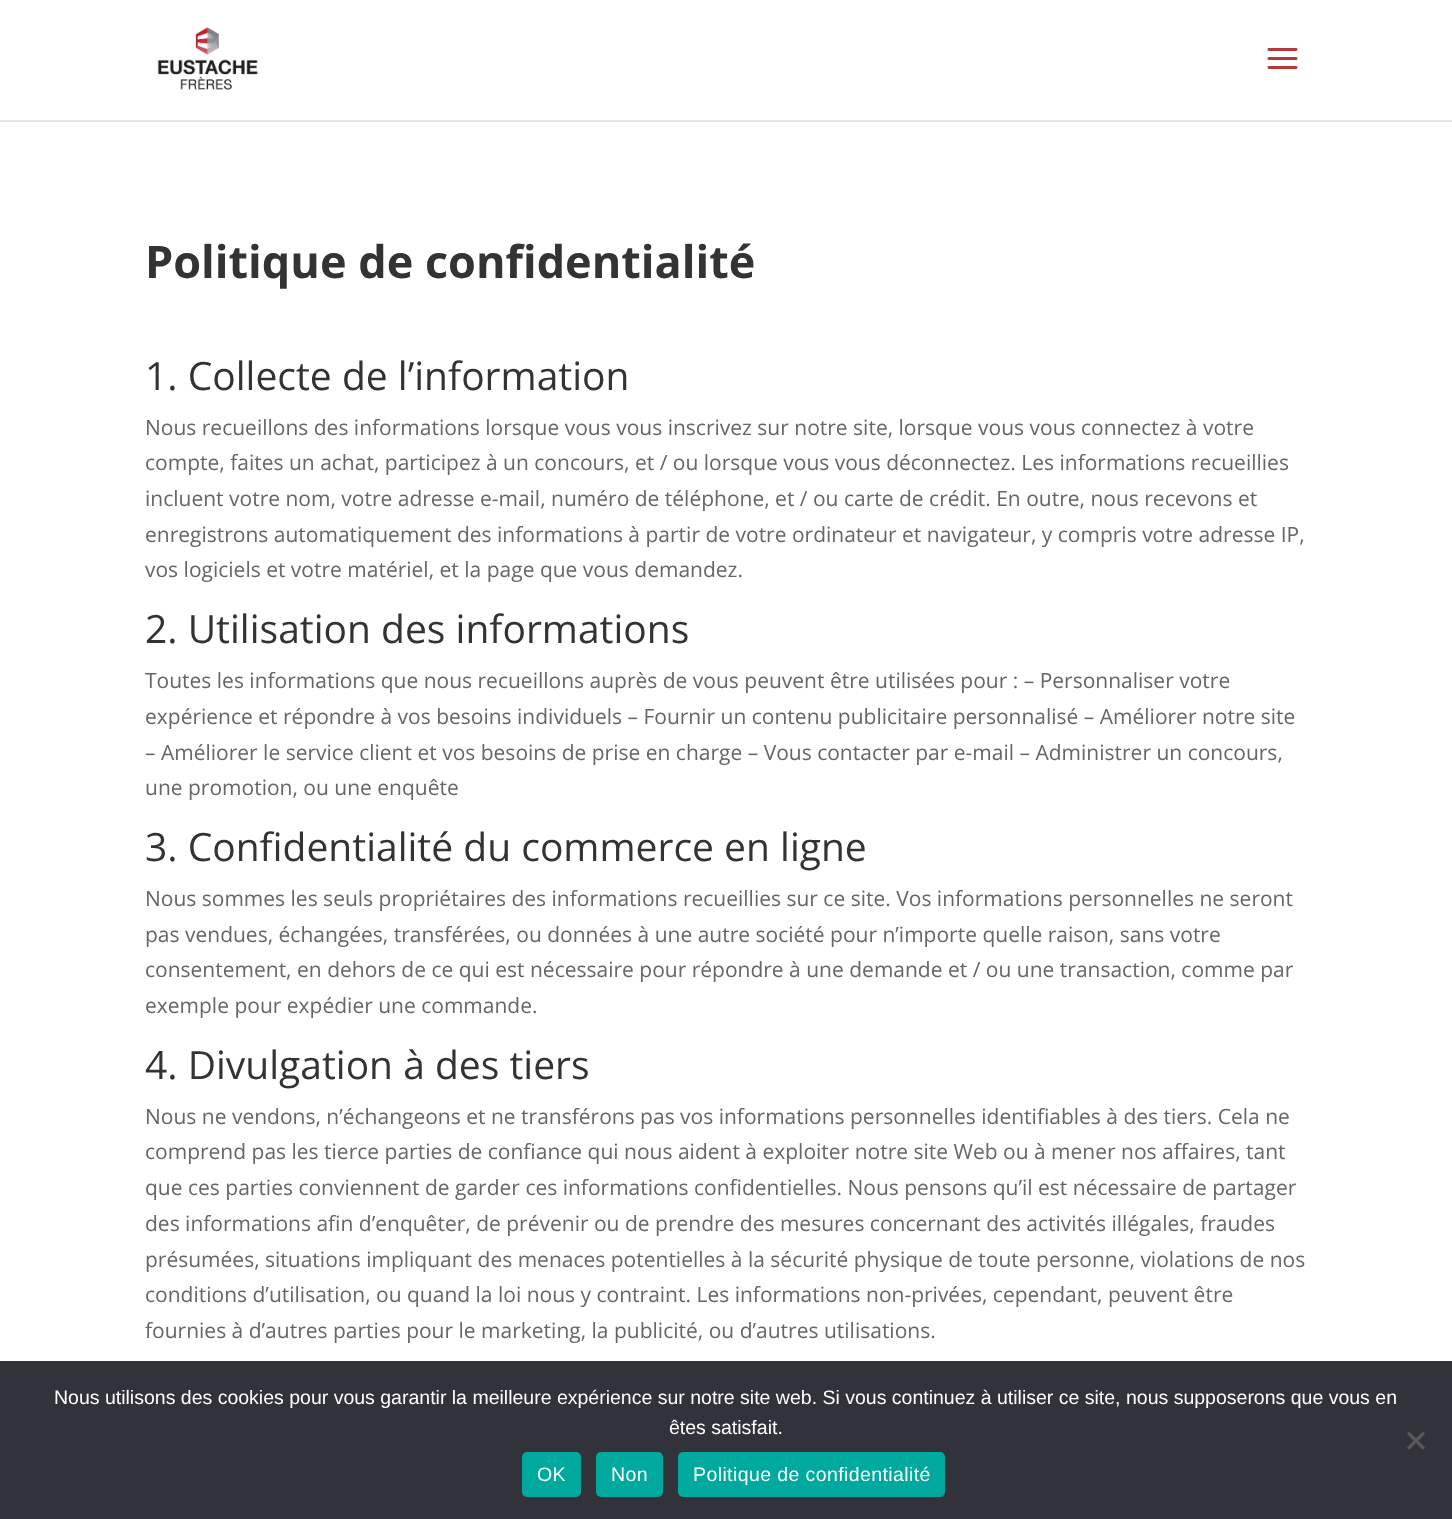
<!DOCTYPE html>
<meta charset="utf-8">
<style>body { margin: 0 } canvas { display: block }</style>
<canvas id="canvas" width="1452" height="1519"></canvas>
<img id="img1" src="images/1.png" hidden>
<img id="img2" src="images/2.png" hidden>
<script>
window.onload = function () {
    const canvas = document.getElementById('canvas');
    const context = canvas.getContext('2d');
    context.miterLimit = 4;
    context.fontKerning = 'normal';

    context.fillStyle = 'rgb(255, 255, 255)';
    context.fillRect(0, 0, 1452, 1519);
    context.fillStyle = 'rgb(230, 230, 230)';
    context.fillRect(0, 120, 1452, 2);
    context.drawImage(document.getElementById('img1'), 157, 27, 101, 63);
    context.drawImage(document.getElementById('img2'), 1267, 48, 31, 21);
    context.fillStyle = 'rgb(50, 50, 58)';
    context.fillRect(0, 1361, 1452, 158);
    context.fillStyle = 'rgb(89, 89, 93)';
    context.beginPath();
    context.moveTo(1423, 1431.5);
    context.lineTo(1425, 1434);
    context.lineTo(1409, 1450);
    context.lineTo(1407, 1447.5);
    context.closePath();
    context.fill();
    context.beginPath();
    context.moveTo(1407, 1434);
    context.lineTo(1409, 1431.5);
    context.lineTo(1425, 1447.5);
    context.lineTo(1423, 1450);
    context.closePath();
    context.fill();
    context.fillStyle = 'rgb(0, 169, 157)';
    context.beginPath();
    context.roundRect(522, 1452, 59, 45, 5);
    context.fill();
    context.beginPath();
    context.roundRect(596, 1452, 67, 45, 5);
    context.fill();
    context.beginPath();
    context.roundRect(678, 1452, 267, 45, 5);
    context.fill();
    context.font = 'bold 45px Open Sans';
    context.fillStyle = 'rgb(51, 51, 51)';
    context.fillText('Politique de confidentialité', 145, 278);
    context.font = '39px Open Sans';
    context.fillText('1. Collecte de l’information', 145, 390);
    context.font = '21px Open Sans';
    context.fillStyle = 'rgb(102, 102, 102)';
    context.fillText('Nous recueillons des informations lorsque vous vous inscrivez sur notre site, lorsque vous vous connectez à votre', 145, 435);
    context.fillText('compte, faites un achat, participez à un concours, et / ou lorsque vous vous déconnectez. Les informations recueillies', 145, 470);
    context.fillText('incluent votre nom, votre adresse e-mail, numéro de téléphone, et / ou carte de crédit. En outre, nous recevons et', 145, 506);
    context.fillText('enregistrons automatiquement des informations à partir de votre ordinateur et navigateur, y compris votre adresse IP,', 145, 542);
    context.fillText('vos logiciels et votre matériel, et la page que vous demandez.', 145, 577);
    context.font = '39px Open Sans';
    context.fillStyle = 'rgb(51, 51, 51)';
    context.fillText('2. Utilisation des informations', 145, 643);
    context.font = '21px Open Sans';
    context.fillStyle = 'rgb(102, 102, 102)';
    context.fillText('Toutes les informations que nous recueillons auprès de vous peuvent être utilisées pour : – Personnaliser votre', 145, 688);
    context.fillText('expérience et répondre à vos besoins individuels – Fournir un contenu publicitaire personnalisé – Améliorer notre site', 145, 724);
    context.fillText('– Améliorer le service client et vos besoins de prise en charge – Vous contacter par e-mail – Administrer un concours,', 145, 760);
    context.fillText('une promotion, ou une enquête', 145, 795);
    context.font = '39px Open Sans';
    context.fillStyle = 'rgb(51, 51, 51)';
    context.fillText('3. Confidentialité du commerce en ligne', 145, 861);
    context.font = '21px Open Sans';
    context.fillStyle = 'rgb(102, 102, 102)';
    context.fillText('Nous sommes les seuls propriétaires des informations recueillies sur ce site. Vos informations personnelles ne seront', 145, 906);
    context.fillText('pas vendues, échangées, transférées, ou données à une autre société pour n’importe quelle raison, sans votre', 145, 942);
    context.fillText('consentement, en dehors de ce qui est nécessaire pour répondre à une demande et / ou une transaction, comme par', 145, 977);
    context.fillText('exemple pour expédier une commande.', 145, 1013);
    context.font = '39px Open Sans';
    context.fillStyle = 'rgb(51, 51, 51)';
    context.fillText('4. Divulgation à des tiers', 145, 1079);
    context.font = '21px Open Sans';
    context.fillStyle = 'rgb(102, 102, 102)';
    context.fillText('Nous ne vendons, n’échangeons et ne transférons pas vos informations personnelles identifiables à des tiers. Cela ne', 145, 1124);
    context.fillText('comprend pas les tierce parties de confiance qui nous aident à exploiter notre site Web ou à mener nos affaires, tant', 145, 1159);
    context.fillText('que ces parties conviennent de garder ces informations confidentielles. Nous pensons qu’il est nécessaire de partager', 145, 1195);
    context.fillText('des informations afin d’enquêter, de prévenir ou de prendre des mesures concernant des activités illégales, fraudes', 145, 1231);
    context.fillText('présumées, situations impliquant des menaces potentielles à la sécurité physique de toute personne, violations de nos', 145, 1267);
    context.fillText('conditions d’utilisation, ou quand la loi nous y contraint. Les informations non-privées, cependant, peuvent être', 145, 1302);
    context.fillText('fournies à d’autres parties pour le marketing, la publicité, ou d’autres utilisations.', 145, 1338);
    context.font = '19.5px Liberation Sans';
    context.fillStyle = 'rgb(255, 255, 255)';
    context.fillText('Nous utilisons des cookies pour vous garantir la meilleure expérience sur notre site web. Si vous continuez à utiliser ce site, nous supposerons que vous en', 54, 1404);
    context.fillText('êtes satisfait.', 669, 1434);
    context.letterSpacing = '0.4px';
    context.fillText('OK', 537, 1481);
    context.fillText('Non', 611, 1481);
    context.fillText('Politique de confidentialité', 693, 1481);
};
</script>
